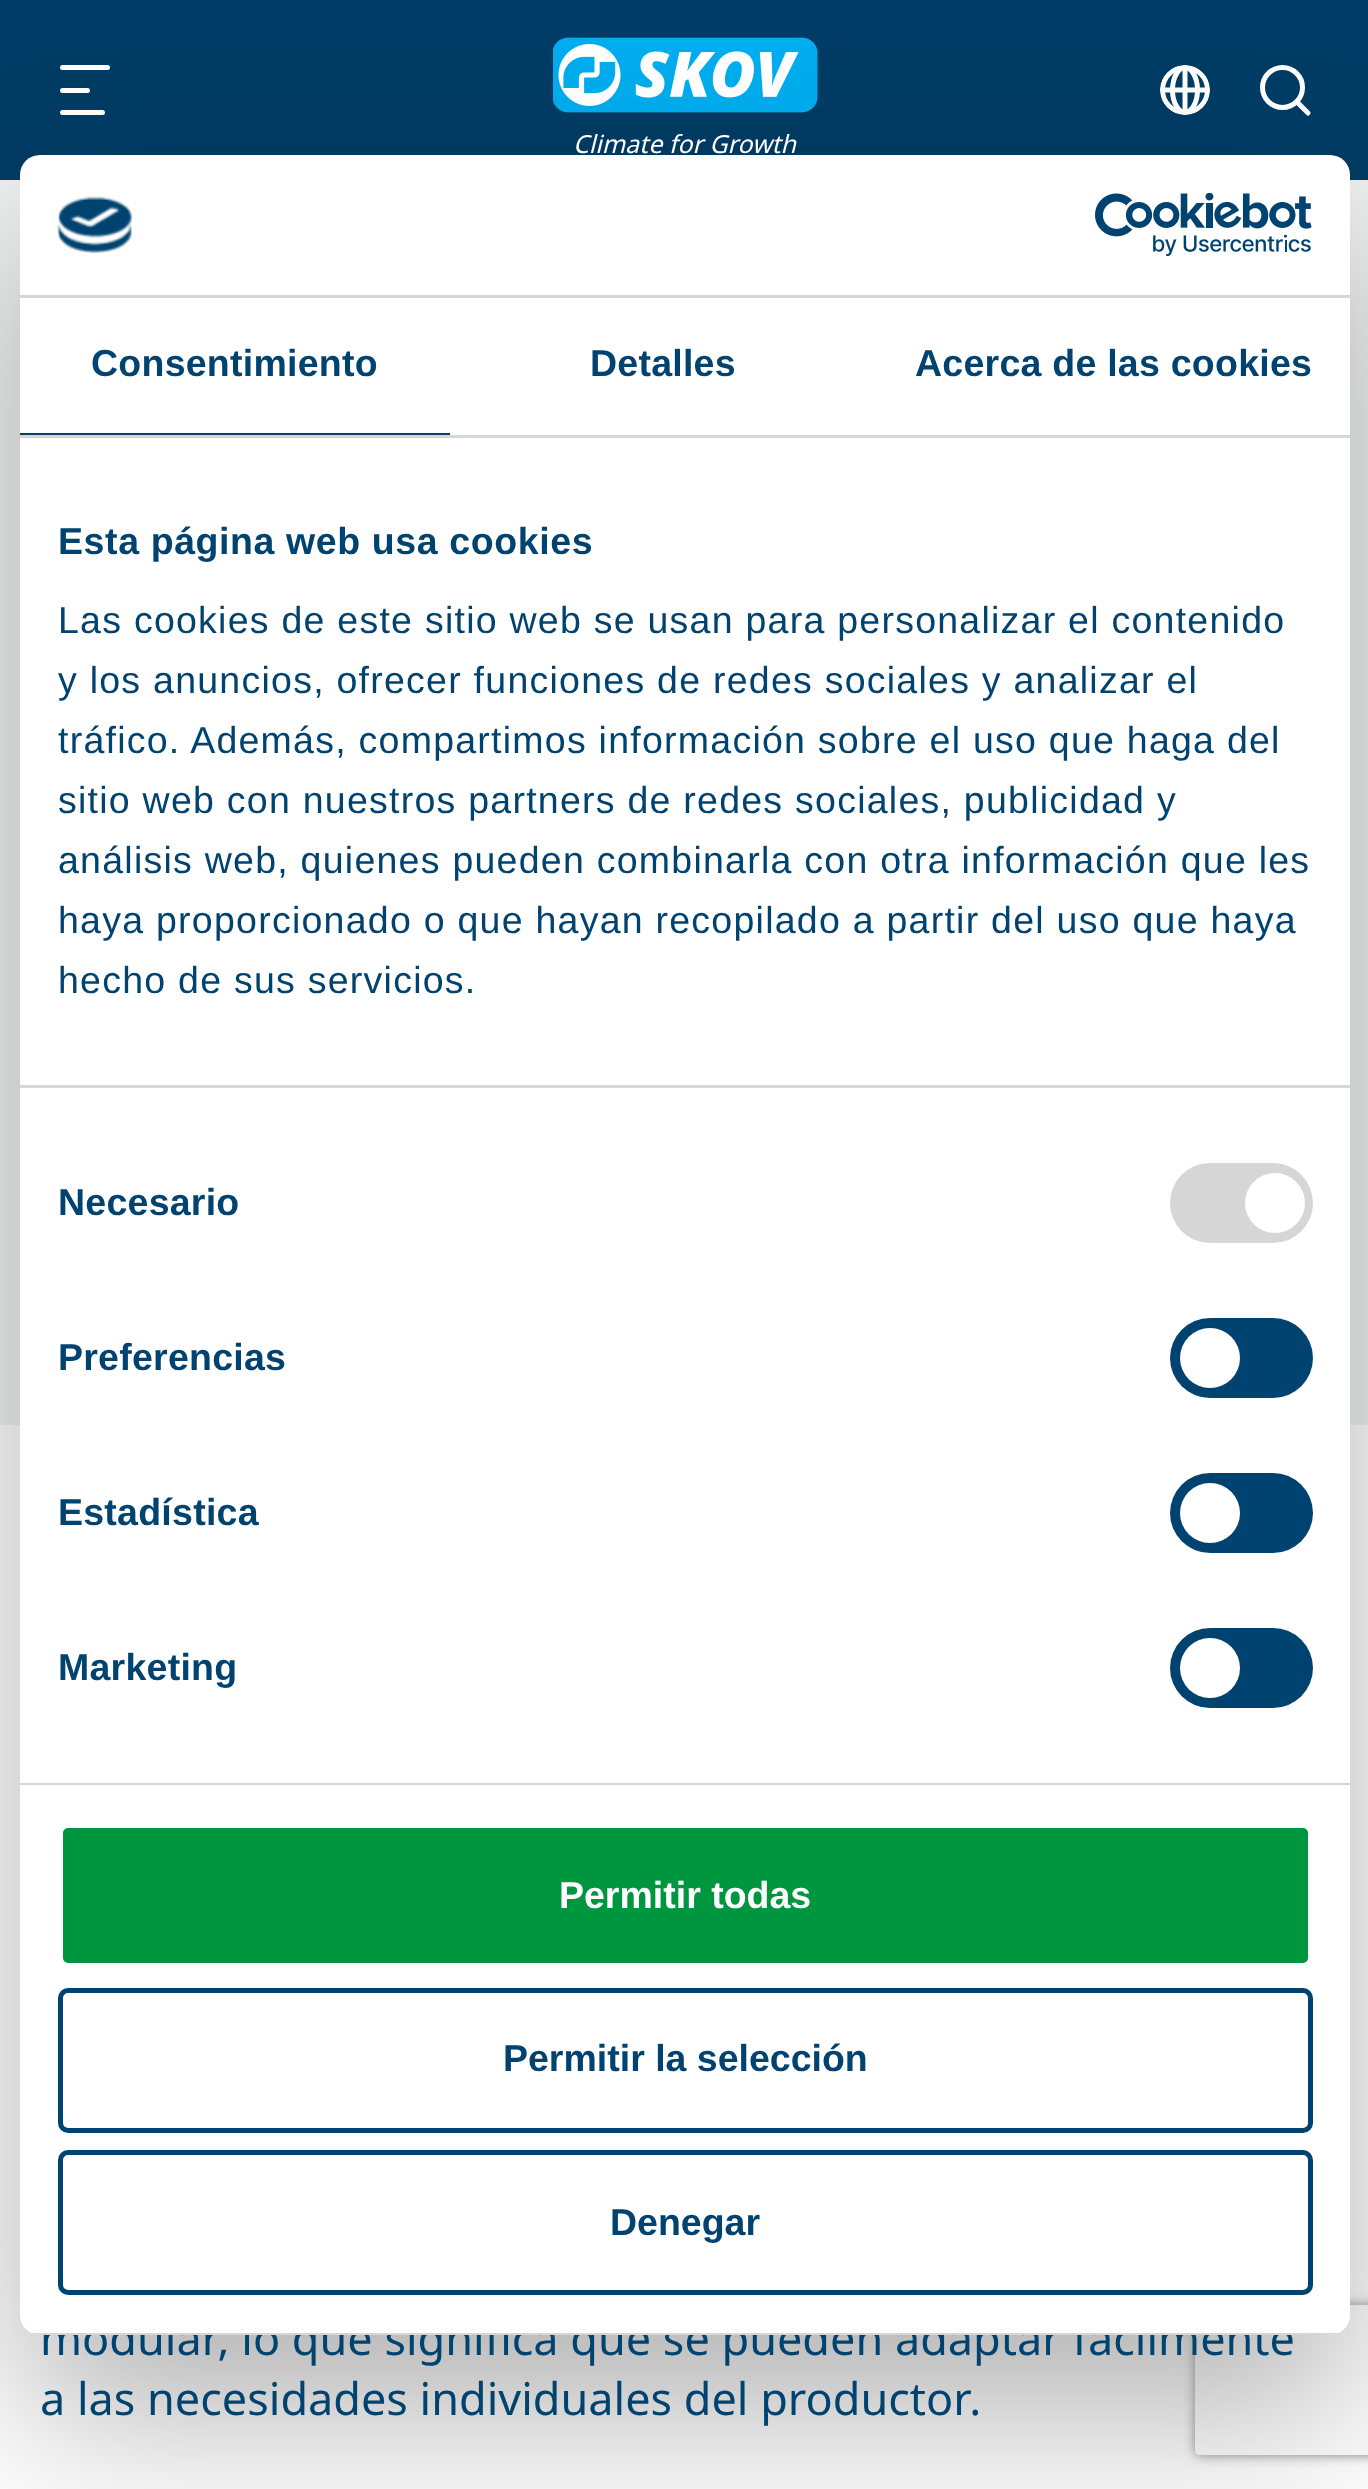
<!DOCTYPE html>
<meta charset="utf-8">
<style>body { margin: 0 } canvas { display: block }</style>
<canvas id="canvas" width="1368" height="2489"></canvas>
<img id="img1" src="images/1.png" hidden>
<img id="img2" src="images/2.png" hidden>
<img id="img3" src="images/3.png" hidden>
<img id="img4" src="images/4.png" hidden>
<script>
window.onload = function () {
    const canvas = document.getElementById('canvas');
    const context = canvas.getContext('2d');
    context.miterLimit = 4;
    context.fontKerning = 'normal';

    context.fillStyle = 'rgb(255, 255, 255)';
    context.fillRect(0, 0, 1368, 2489);
    context.fillStyle = 'rgb(0, 60, 101)';
    context.fillRect(0, 0, 1368, 180);
    context.fillStyle = 'rgb(255, 255, 255)';
    context.beginPath();
    context.roundRect(60, 65, 50, 5, 2.5);
    context.fill();
    context.beginPath();
    context.roundRect(60, 110, 45, 5, 2.5);
    context.fill();
    context.beginPath();
    context.roundRect(60, 88, 30, 5, 2.5);
    context.fill();
    context.drawImage(document.getElementById('img1'), 1160, 65, 50, 50);
    context.beginPath();
    context.arc(1282.5, 87.5, 20, 0, 2 * Math.PI);
    context.strokeStyle = 'rgb(255, 255, 255)';
    context.lineWidth = 5;
    context.stroke();
    context.beginPath();
    context.moveTo(1297.5, 102.5);
    context.lineTo(1308, 113);
    context.lineCap = 'round';
    context.stroke();
    context.drawImage(document.getElementById('img2'), 553, 37, 265, 76);
    context.fillStyle = 'rgb(241, 242, 242)';
    context.fillRect(0, 180, 1368, 1245);
    context.fillStyle = 'rgba(0, 0, 0, 0.3)';
    context.filter = 'blur(85px)';
    context.beginPath();
    context.roundRect(20, 235, 1330, 2180, 20);
    context.fill();
    context.filter = 'none';
    context.save();
    context.beginPath();
    context.moveTo(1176, 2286);
    context.lineTo(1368, 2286);
    context.lineTo(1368, 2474);
    context.lineTo(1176, 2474);
    context.closePath();
    context.moveTo(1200, 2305);
    context.lineTo(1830, 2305);
    context.bezierCurveTo(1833, 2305, 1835, 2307, 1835, 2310);
    context.lineTo(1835, 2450);
    context.bezierCurveTo(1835, 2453, 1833, 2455, 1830, 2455);
    context.lineTo(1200, 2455);
    context.bezierCurveTo(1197, 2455, 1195, 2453, 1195, 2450);
    context.lineTo(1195, 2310);
    context.bezierCurveTo(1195, 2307, 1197, 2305, 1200, 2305);
    context.closePath();
    context.clip('evenodd');
    context.fillStyle = 'rgb(128, 128, 128)';
    context.filter = 'blur(6px)';
    context.beginPath();
    context.roundRect(1195, 2305, 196, 150, 5);
    context.fill();
    context.filter = 'none';
    context.restore();
    context.font = 'italic 25px Noto Sans';
    context.fillStyle = 'rgb(255, 255, 255)';
    context.fillText('Climate for Growth', 573, 153);
    context.font = '45px Noto Sans';
    context.fillStyle = 'rgb(0, 67, 112)';
    context.fillText('modular, lo que significa que se pueden adaptar fácilmente', 40, 2355);
    context.fillText('a las necesidades individuales del productor.', 40, 2415);
    context.fillStyle = 'rgb(255, 255, 255)';
    context.beginPath();
    context.roundRect(20, 155, 1330, 2180, 20);
    context.fill();
    context.fillStyle = 'rgb(214, 214, 214)';
    context.fillRect(20, 295, 1330, 3);
    context.drawImage(document.getElementById('img3'), 57, 196, 76, 57);
    context.drawImage(document.getElementById('img4'), 1095, 193, 217, 63);
    context.fillRect(20, 435, 1330, 3);
    context.fillStyle = 'rgb(0, 67, 112)';
    context.fillRect(20, 433, 430, 2);
    context.letterSpacing = '0.25px';
    context.font = 'bold 37.5px Liberation Sans';
    context.fillText('Consentimiento', 91, 376);
    context.fillText('Detalles', 590, 376);
    context.fillText('Acerca de las cookies', 915, 376);
    context.fillStyle = 'rgb(214, 214, 214)';
    context.fillRect(20, 1085, 1330, 3);
    context.letterSpacing = '0.6px';
    context.fillStyle = 'rgb(0, 67, 112)';
    context.fillText('Esta página web usa cookies', 58, 554);
    context.letterSpacing = '1.25px';
    context.font = '37.5px Liberation Sans';
    context.fillText('Las cookies de este sitio web se usan para personalizar el contenido', 58, 633);
    context.fillText('y los anuncios, ofrecer funciones de redes sociales y analizar el', 58, 693);
    context.fillText('tráfico. Además, compartimos información sobre el uso que haga del', 58, 753);
    context.fillText('sitio web con nuestros partners de redes sociales, publicidad y', 58, 813);
    context.fillText('análisis web, quienes pueden combinarla con otra información que les', 58, 873);
    context.fillText('haya proporcionado o que hayan recopilado a partir del uso que haya', 58, 933);
    context.fillText('hecho de sus servicios.', 58, 993);
    context.fillStyle = 'rgb(214, 214, 214)';
    context.fillRect(20, 1783, 1330, 2);
    context.letterSpacing = '0.25px';
    context.font = 'bold 37.5px Liberation Sans';
    context.fillStyle = 'rgb(0, 67, 112)';
    context.fillText('Necesario', 58, 1215);
    context.fillStyle = 'rgb(214, 214, 214)';
    context.beginPath();
    context.roundRect(1170, 1163, 143, 80, 40);
    context.fill();
    context.fillStyle = 'rgb(255, 255, 255)';
    context.beginPath();
    context.arc(1275, 1203, 30, 0, 2 * Math.PI);
    context.fill();
    context.fillStyle = 'rgb(0, 67, 112)';
    context.fillText('Preferencias', 58, 1370);
    context.beginPath();
    context.roundRect(1170, 1318, 143, 80, 40);
    context.fill();
    context.fillStyle = 'rgb(255, 255, 255)';
    context.beginPath();
    context.arc(1210, 1358, 30, 0, 2 * Math.PI);
    context.fill();
    context.fillStyle = 'rgb(0, 67, 112)';
    context.fillText('Estadística', 58, 1525);
    context.beginPath();
    context.roundRect(1170, 1473, 143, 80, 40);
    context.fill();
    context.fillStyle = 'rgb(255, 255, 255)';
    context.beginPath();
    context.arc(1210, 1513, 30, 0, 2 * Math.PI);
    context.fill();
    context.fillStyle = 'rgb(0, 67, 112)';
    context.fillText('Marketing', 58, 1680);
    context.beginPath();
    context.roundRect(1170, 1628, 143, 80, 40);
    context.fill();
    context.fillStyle = 'rgb(255, 255, 255)';
    context.beginPath();
    context.arc(1210, 1668, 30, 0, 2 * Math.PI);
    context.fill();
    context.save();
    context.beginPath();
    context.roundRect(20, 155, 1330, 2180, 20);
    context.clip();
    context.fillStyle = 'rgb(214, 214, 214)';
    context.fillRect(31, 2333, 1308, 2);
    context.restore();
    context.fillStyle = 'rgb(0, 150, 64)';
    context.beginPath();
    context.roundRect(60.5, 1825.5, 1250, 140, 7.5);
    context.fill();
    context.stroke();
    context.letterSpacing = '0px';
    context.fillStyle = 'rgb(255, 255, 255)';
    context.fillText('Permitir todas', 559, 1908);
    context.beginPath();
    context.roundRect(60.5, 1990.5, 1250, 140, 7.5);
    context.strokeStyle = 'rgb(0, 67, 112)';
    context.stroke();
    context.fillStyle = 'rgb(0, 67, 112)';
    context.fillText('Permitir la selección', 503, 2071);
    context.beginPath();
    context.roundRect(60.5, 2152.5, 1250, 140, 7.5);
    context.stroke();
    context.fillText('Denegar', 610, 2235);
};
</script>
